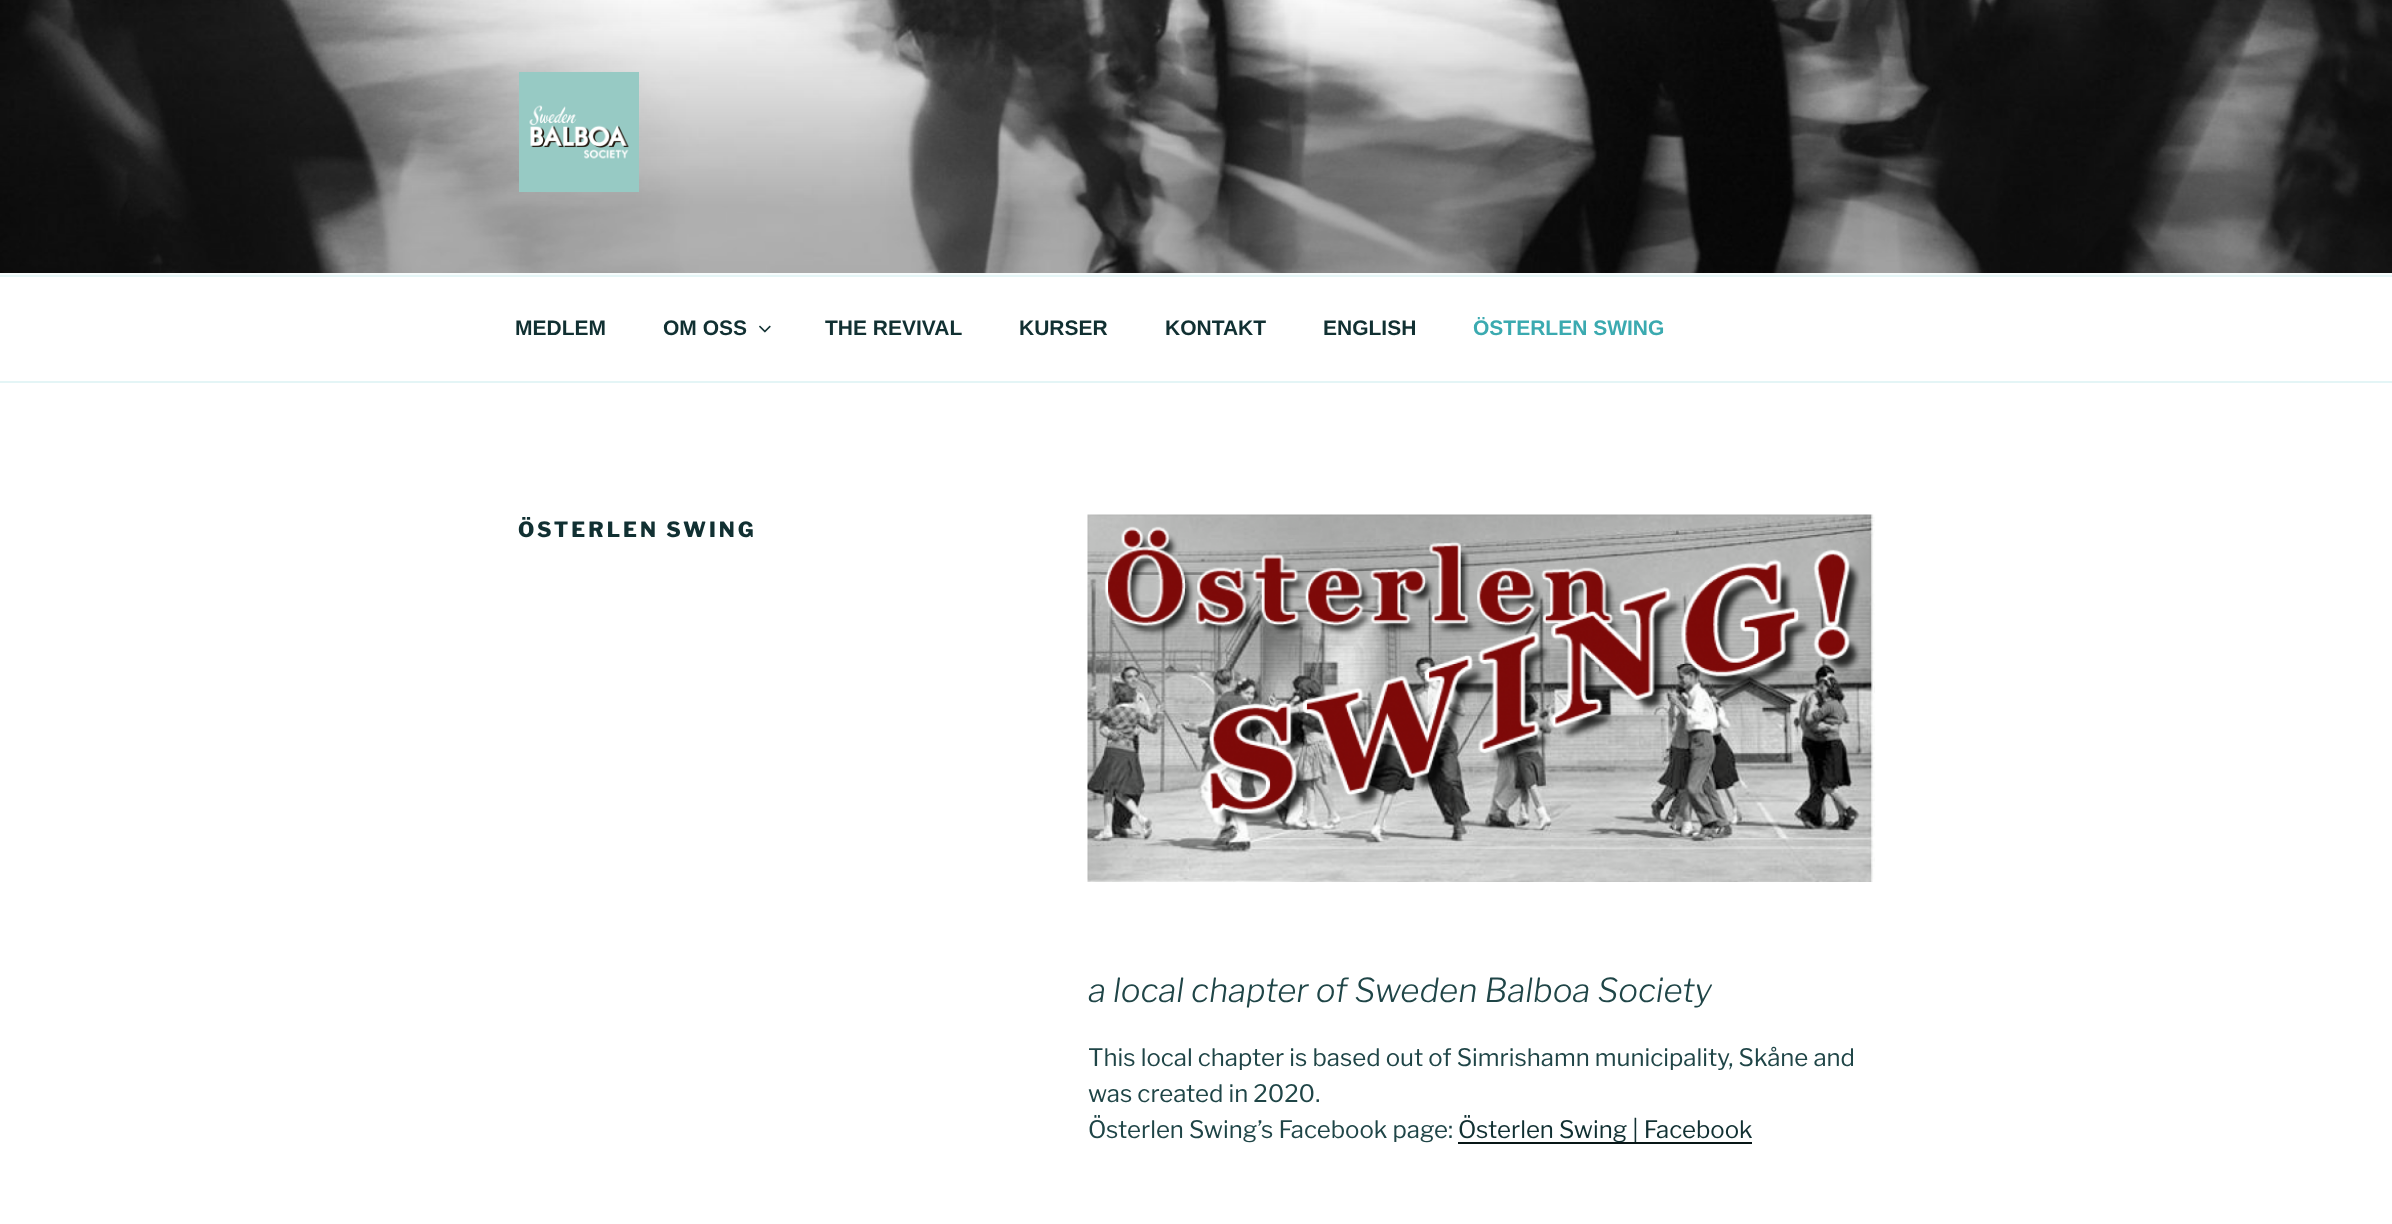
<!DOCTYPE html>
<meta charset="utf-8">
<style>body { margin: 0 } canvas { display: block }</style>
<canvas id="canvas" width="2392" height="1224"></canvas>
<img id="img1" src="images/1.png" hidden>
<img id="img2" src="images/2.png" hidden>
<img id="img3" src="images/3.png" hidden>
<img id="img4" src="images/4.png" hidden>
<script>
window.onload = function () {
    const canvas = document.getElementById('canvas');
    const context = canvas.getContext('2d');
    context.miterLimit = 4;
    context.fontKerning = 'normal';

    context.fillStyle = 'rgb(255, 255, 255)';
    context.fillRect(0, 0, 2392, 1224);
    context.fillStyle = 'rgb(247, 252, 252)';
    context.fillRect(0, 273, 2392, 2);
    context.drawImage(document.getElementById('img1'), 0, 0, 2392, 273);
    context.drawImage(document.getElementById('img2'), 519, 72, 120, 120);
    context.fillStyle = 'rgb(228, 245, 246)';
    context.fillRect(0, 275, 2392, 2);
    context.fillRect(0, 381, 2392, 2);
    context.drawImage(document.getElementById('img3'), 759, 325, 12, 8);
    context.drawImage(document.getElementById('img4'), 1087, 514, 788, 368);
    context.fillStyle = 'rgb(8, 22, 23)';
    context.fillRect(1458, 1142, 294, 2);
    context.font = 'bold 21px Liberation Sans';
    context.fillStyle = 'rgb(17, 48, 50)';
    context.fillText('MEDLEM', 515, 335);
    context.fillText('OM OSS', 663, 335);
    context.fillText('THE REVIVAL', 825, 335);
    context.fillText('KURSER', 1019, 335);
    context.fillText('KONTAKT', 1165, 335);
    context.fillText('ENGLISH', 1323, 335);
    context.fillStyle = 'rgb(59, 170, 176)';
    context.fillText('ÖSTERLEN SWING', 1473, 335);
    context.letterSpacing = '3px';
    context.font = '100 21px Libre Franklin';
    context.fillStyle = 'rgb(17, 48, 50)';
    context.fillText('ÖSTERLEN SWING', 518, 537);
    context.letterSpacing = '0px';
    context.font = 'italic 100 33px Libre Franklin';
    context.fillStyle = 'rgb(31, 69, 71)';
    context.fillText('a local chapter of Sweden Balboa Society', 1088, 1002);
    context.font = '100 24px "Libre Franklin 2"';
    context.fillText('This local chapter is based out of Simrishamn municipality, Skåne and', 1088, 1066);
    context.fillText('was created in 2020.', 1088, 1102);
    context.fillText('Österlen Swing’s Facebook page:', 1088, 1138);
    context.fillStyle = 'rgb(17, 48, 50)';
    context.fillText('Österlen Swing | Facebook', 1458, 1138);
};
</script>
